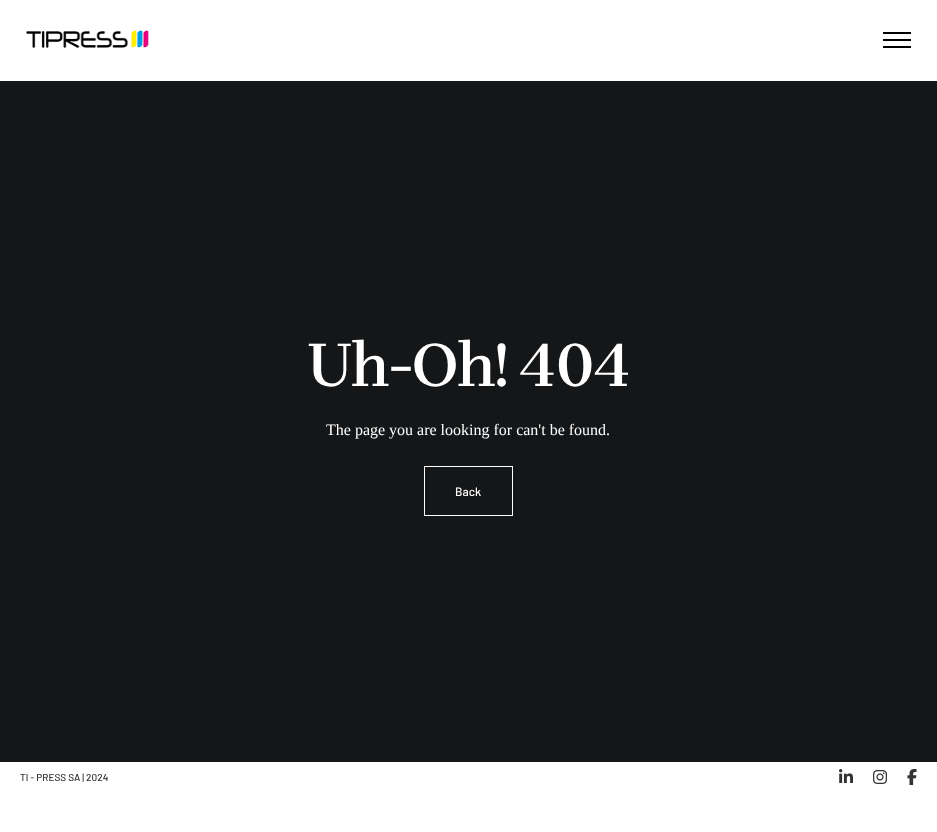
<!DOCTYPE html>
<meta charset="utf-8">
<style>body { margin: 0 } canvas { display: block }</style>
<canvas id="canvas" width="937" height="832"></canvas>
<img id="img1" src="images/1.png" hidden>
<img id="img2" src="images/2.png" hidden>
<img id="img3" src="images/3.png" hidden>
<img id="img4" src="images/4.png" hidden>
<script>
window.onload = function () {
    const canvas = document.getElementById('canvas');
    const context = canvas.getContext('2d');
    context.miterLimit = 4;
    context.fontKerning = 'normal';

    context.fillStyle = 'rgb(255, 255, 255)';
    context.fillRect(0, 0, 937, 832);
    context.drawImage(document.getElementById('img1'), 26, 30, 123, 18);
    context.fillStyle = 'rgb(0, 0, 0)';
    context.fillRect(883, 39, 28, 2);
    context.fillRect(883, 32, 28, 2);
    context.fillRect(883, 46, 28, 2);
    context.fillStyle = 'rgb(20, 22, 24)';
    context.fillRect(0, 81, 937, 681);
    context.strokeStyle = 'rgb(255, 255, 255)';
    context.strokeRect(424.5, 466.5, 88, 49);
    context.drawImage(document.getElementById('img2'), 839, 769, 14, 14);
    context.drawImage(document.getElementById('img3'), 873, 770, 14, 14);
    context.drawImage(document.getElementById('img4'), 907, 769, 10, 16);
    context.letterSpacing = '-1.9px';
    context.font = '600 63px "Brygada 1918"';
    context.fillStyle = 'rgb(255, 255, 255)';
    context.fillText('Uh-Oh! 404', 307, 386);
    context.letterSpacing = '0px';
    context.font = '16px Liberation Serif';
    context.fillText('The page you are looking for can\'t be found.', 326, 435);
    context.font = '500 12px Barlow';
    context.fillText('Back', 455, 496);
    context.font = '500 10px Barlow';
    context.fillStyle = 'rgb(51, 51, 51)';
    context.fillText('TI - PRESS SA | 2024', 20, 781);
};
</script>
